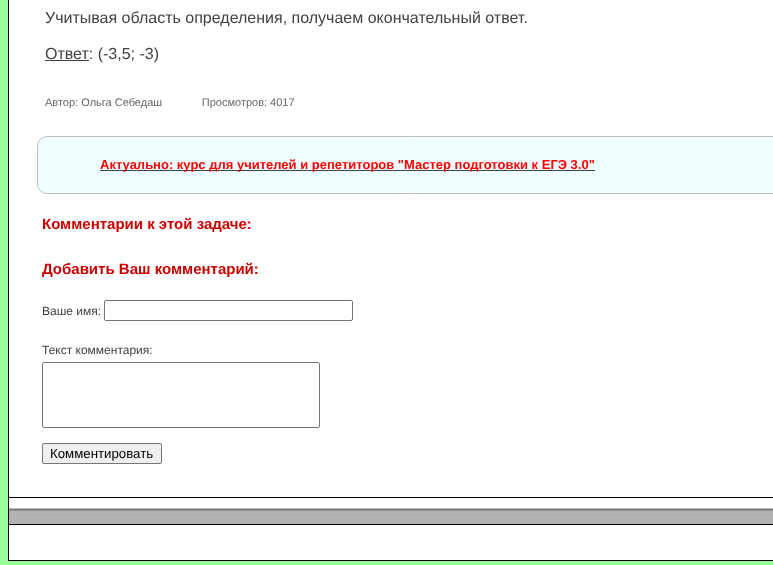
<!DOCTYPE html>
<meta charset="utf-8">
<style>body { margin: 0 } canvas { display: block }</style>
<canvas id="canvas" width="773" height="565"></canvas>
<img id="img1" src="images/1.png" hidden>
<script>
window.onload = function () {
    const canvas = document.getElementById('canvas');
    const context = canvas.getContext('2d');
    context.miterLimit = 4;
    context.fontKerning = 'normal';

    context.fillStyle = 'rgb(153, 255, 153)';
    context.fillRect(0, 0, 773, 565);
    context.fillStyle = 'rgb(255, 255, 255)';
    context.fillRect(9, 0, 764, 560);
    context.fillStyle = 'rgb(0, 0, 0)';
    context.fillRect(8, 497, 765, 1);
    context.fillRect(8, 524, 765, 1);
    context.fillRect(8, 560, 765, 1);
    context.fillRect(8, 524, 1, 37);
    context.fillRect(8, 0, 1, 525);
    context.drawImage(document.getElementById('img1'), 9, 508, 764, 16);
    context.fillStyle = 'rgb(66, 66, 66)';
    context.fillRect(45, 60, 44, 1);
    context.fillStyle = 'rgb(240, 255, 255)';
    context.beginPath();
    context.roundRect(37.5, 136.5, 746, 57, 9.5);
    context.fill();
    context.strokeStyle = 'rgb(192, 192, 192)';
    context.stroke();
    context.fillStyle = 'rgb(66, 66, 66)';
    context.fillRect(100, 170, 495, 1);
    context.beginPath();
    context.roundRect(104.5, 300.5, 248, 20, 1.5);
    context.strokeStyle = 'rgb(118, 118, 118)';
    context.stroke();
    context.beginPath();
    context.roundRect(42.5, 362.5, 277, 65, 1.5);
    context.stroke();
    context.fillStyle = 'rgb(239, 239, 239)';
    context.beginPath();
    context.roundRect(42.5, 443.5, 119, 20, 1.5);
    context.fill();
    context.stroke();
    context.font = '16px Liberation Sans';
    context.fillStyle = 'rgb(66, 66, 66)';
    context.fillText('Учитывая область определения, получаем окончательный ответ.', 45, 23);
    context.fillText('Ответ: (-3,5; -3)', 45, 59);
    context.font = '11px Liberation Sans';
    context.fillStyle = 'rgb(102, 102, 102)';
    context.fillText('Автор: Ольга Себедаш             Просмотров: 4017', 45, 106);
    context.font = 'bold 13px Liberation Sans';
    context.fillStyle = 'rgb(255, 0, 0)';
    context.fillText('Актуально: курс для учителей и репетиторов "Мастер подготовки к ЕГЭ 3.0"', 100, 169);
    context.font = 'bold 15px Liberation Sans';
    context.fillStyle = 'rgb(204, 0, 0)';
    context.fillText('Комментарии к этой задаче:', 42, 229);
    context.fillText('Добавить Ваш комментарий:', 42, 274);
    context.font = '12px Liberation Sans';
    context.fillStyle = 'rgb(66, 66, 66)';
    context.fillText('Ваше имя:', 42, 315);
    context.fillText('Текст комментария:', 42, 354);
    context.font = '13.25px Liberation Sans';
    context.fillStyle = 'rgb(0, 0, 0)';
    context.fillText('Комментировать', 50, 458);
};
</script>
